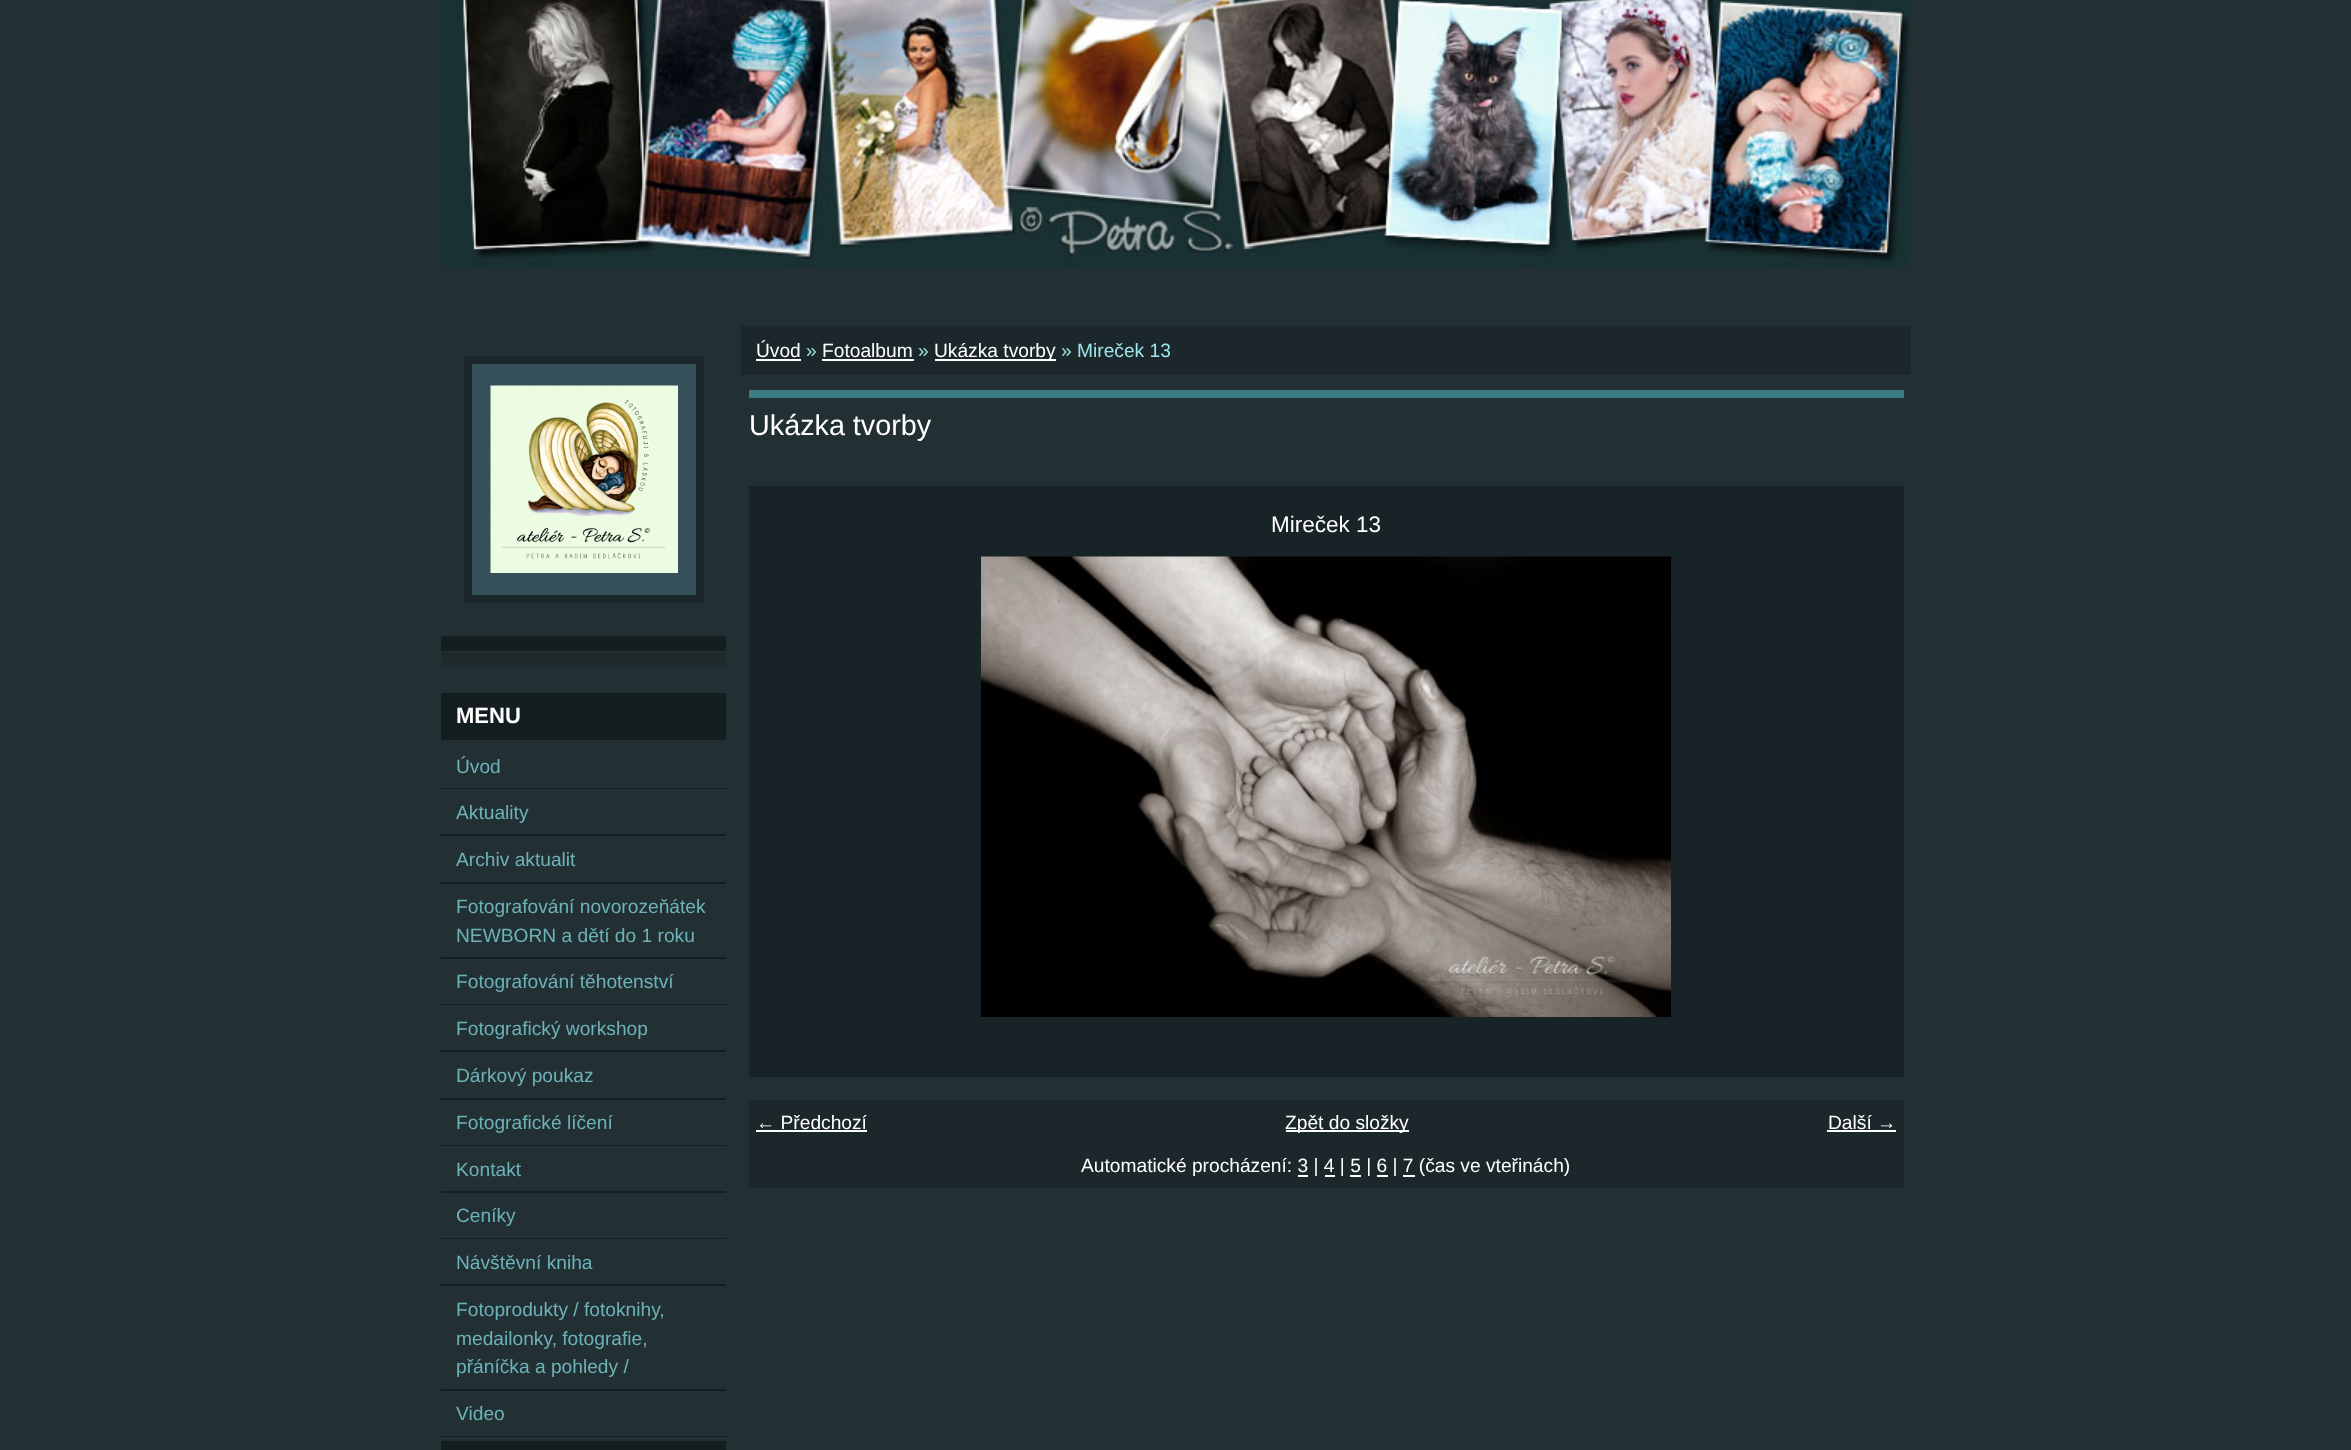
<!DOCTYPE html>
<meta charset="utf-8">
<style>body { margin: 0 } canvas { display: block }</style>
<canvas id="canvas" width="2351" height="1450"></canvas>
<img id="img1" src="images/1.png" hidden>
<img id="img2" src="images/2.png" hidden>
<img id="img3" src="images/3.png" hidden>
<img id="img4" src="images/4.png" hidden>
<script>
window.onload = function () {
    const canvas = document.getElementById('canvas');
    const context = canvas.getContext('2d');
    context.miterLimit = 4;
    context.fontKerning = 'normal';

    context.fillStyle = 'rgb(34, 48, 52)';
    context.fillRect(0, 0, 2351, 1450);
    context.drawImage(document.getElementById('img1'), 441, 0, 1469, 267);
    context.drawImage(document.getElementById('img2'), 441, 636, 285, 31);
    context.fillStyle = 'rgb(53, 80, 88)';
    context.beginPath();
    context.rect(468, 360, 232, 239);
    context.fill();
    context.strokeStyle = 'rgb(27, 39, 42)';
    context.lineWidth = 8;
    context.stroke();
    context.drawImage(document.getElementById('img3'), 490, 385, 188, 188);
    context.fillStyle = 'rgb(20, 30, 33)';
    context.fillRect(441, 693, 285, 47);
    context.fillRect(441, 1441, 285, 9);
    context.fillRect(441, 788, 285, 1);
    context.fillRect(441, 834, 285, 2);
    context.fillRect(441, 882, 285, 2);
    context.fillRect(441, 957, 285, 2);
    context.fillRect(441, 1004, 285, 1);
    context.fillRect(441, 1050, 285, 2);
    context.fillRect(441, 1098, 285, 2);
    context.fillRect(441, 1145, 285, 1);
    context.fillRect(441, 1191, 285, 2);
    context.fillRect(441, 1238, 285, 1);
    context.fillRect(441, 1284, 285, 2);
    context.fillRect(441, 1389, 285, 2);
    context.fillRect(441, 1436, 285, 1);
    context.fillStyle = 'rgb(27, 39, 42)';
    context.fillRect(741, 326, 1170, 49);
    context.fillStyle = 'rgb(255, 255, 255)';
    context.fillRect(756, 359, 45, 2);
    context.fillRect(822, 359, 92, 2);
    context.fillRect(935, 359, 121, 2);
    context.fillStyle = 'rgb(57, 123, 129)';
    context.fillRect(749, 390, 1155, 8);
    context.fillStyle = 'rgb(24, 35, 39)';
    context.fillRect(749, 486, 1155, 591);
    context.drawImage(document.getElementById('img4'), 981, 556, 690, 461);
    context.fillStyle = 'rgb(27, 39, 42)';
    context.fillRect(749, 1100, 1155, 88);
    context.fillStyle = 'rgb(255, 255, 255)';
    context.fillRect(756, 1130, 111, 2);
    context.fillRect(1286, 1130, 123, 2);
    context.fillRect(1827, 1130, 69, 2);
    context.fillRect(1298, 1175, 10, 2);
    context.fillRect(1325, 1175, 10, 2);
    context.fillRect(1350, 1175, 11, 2);
    context.fillRect(1377, 1175, 11, 2);
    context.fillRect(1403, 1175, 12, 2);
    context.font = 'bold 22px Liberation Sans';
    context.fillText('MENU', 456, 723);
    context.font = '19.2px Liberation Sans';
    context.fillStyle = 'rgb(109, 178, 184)';
    context.fillText('Úvod', 456, 773);
    context.fillText('Aktuality', 456, 819);
    context.fillText('Archiv aktualit', 456, 866);
    context.fillText('Fotografování novorozeňátek', 456, 913);
    context.fillText('NEWBORN a dětí do 1 roku', 456, 942);
    context.fillText('Fotografování těhotenství', 456, 988);
    context.fillText('Fotografický workshop', 456, 1035);
    context.fillText('Dárkový poukaz', 456, 1082);
    context.fillText('Fotografické líčení', 456, 1129);
    context.fillText('Kontakt', 456, 1176);
    context.fillText('Ceníky', 456, 1222);
    context.fillText('Návštěvní kniha', 456, 1269);
    context.fillText('Fotoprodukty / fotoknihy,', 456, 1316);
    context.fillText('medailonky, fotografie,', 456, 1345);
    context.fillText('přáníčka a pohledy /', 456, 1373);
    context.fillText('Video', 456, 1420);
    context.fillStyle = 'rgb(255, 255, 255)';
    context.fillText('Úvod', 756, 357);
    context.fillStyle = 'rgb(158, 229, 235)';
    context.fillText('»', 806, 357);
    context.fillStyle = 'rgb(255, 255, 255)';
    context.fillText('Fotoalbum', 822, 357);
    context.fillStyle = 'rgb(158, 229, 235)';
    context.fillText('»', 918, 357);
    context.fillStyle = 'rgb(255, 255, 255)';
    context.fillText('Ukázka tvorby', 934, 357);
    context.fillStyle = 'rgb(158, 229, 235)';
    context.fillText('» Mireček 13', 1061, 357);
    context.font = '28.75px Liberation Sans';
    context.fillStyle = 'rgb(255, 255, 255)';
    context.fillText('Ukázka tvorby', 749, 435);
    context.font = '22.5px Liberation Sans';
    context.fillText('Mireček 13', 1271, 532);
    context.font = '19.2px Liberation Sans';
    context.fillText('← Předchozí', 756, 1129);
    context.fillText('Zpět do složky', 1285, 1129);
    context.fillText('Další →', 1828, 1129);
    context.fillText('Automatické procházení: 3 | 4 | 5 | 6 | 7 (čas ve vteřinách)', 1081, 1172);
};
</script>
